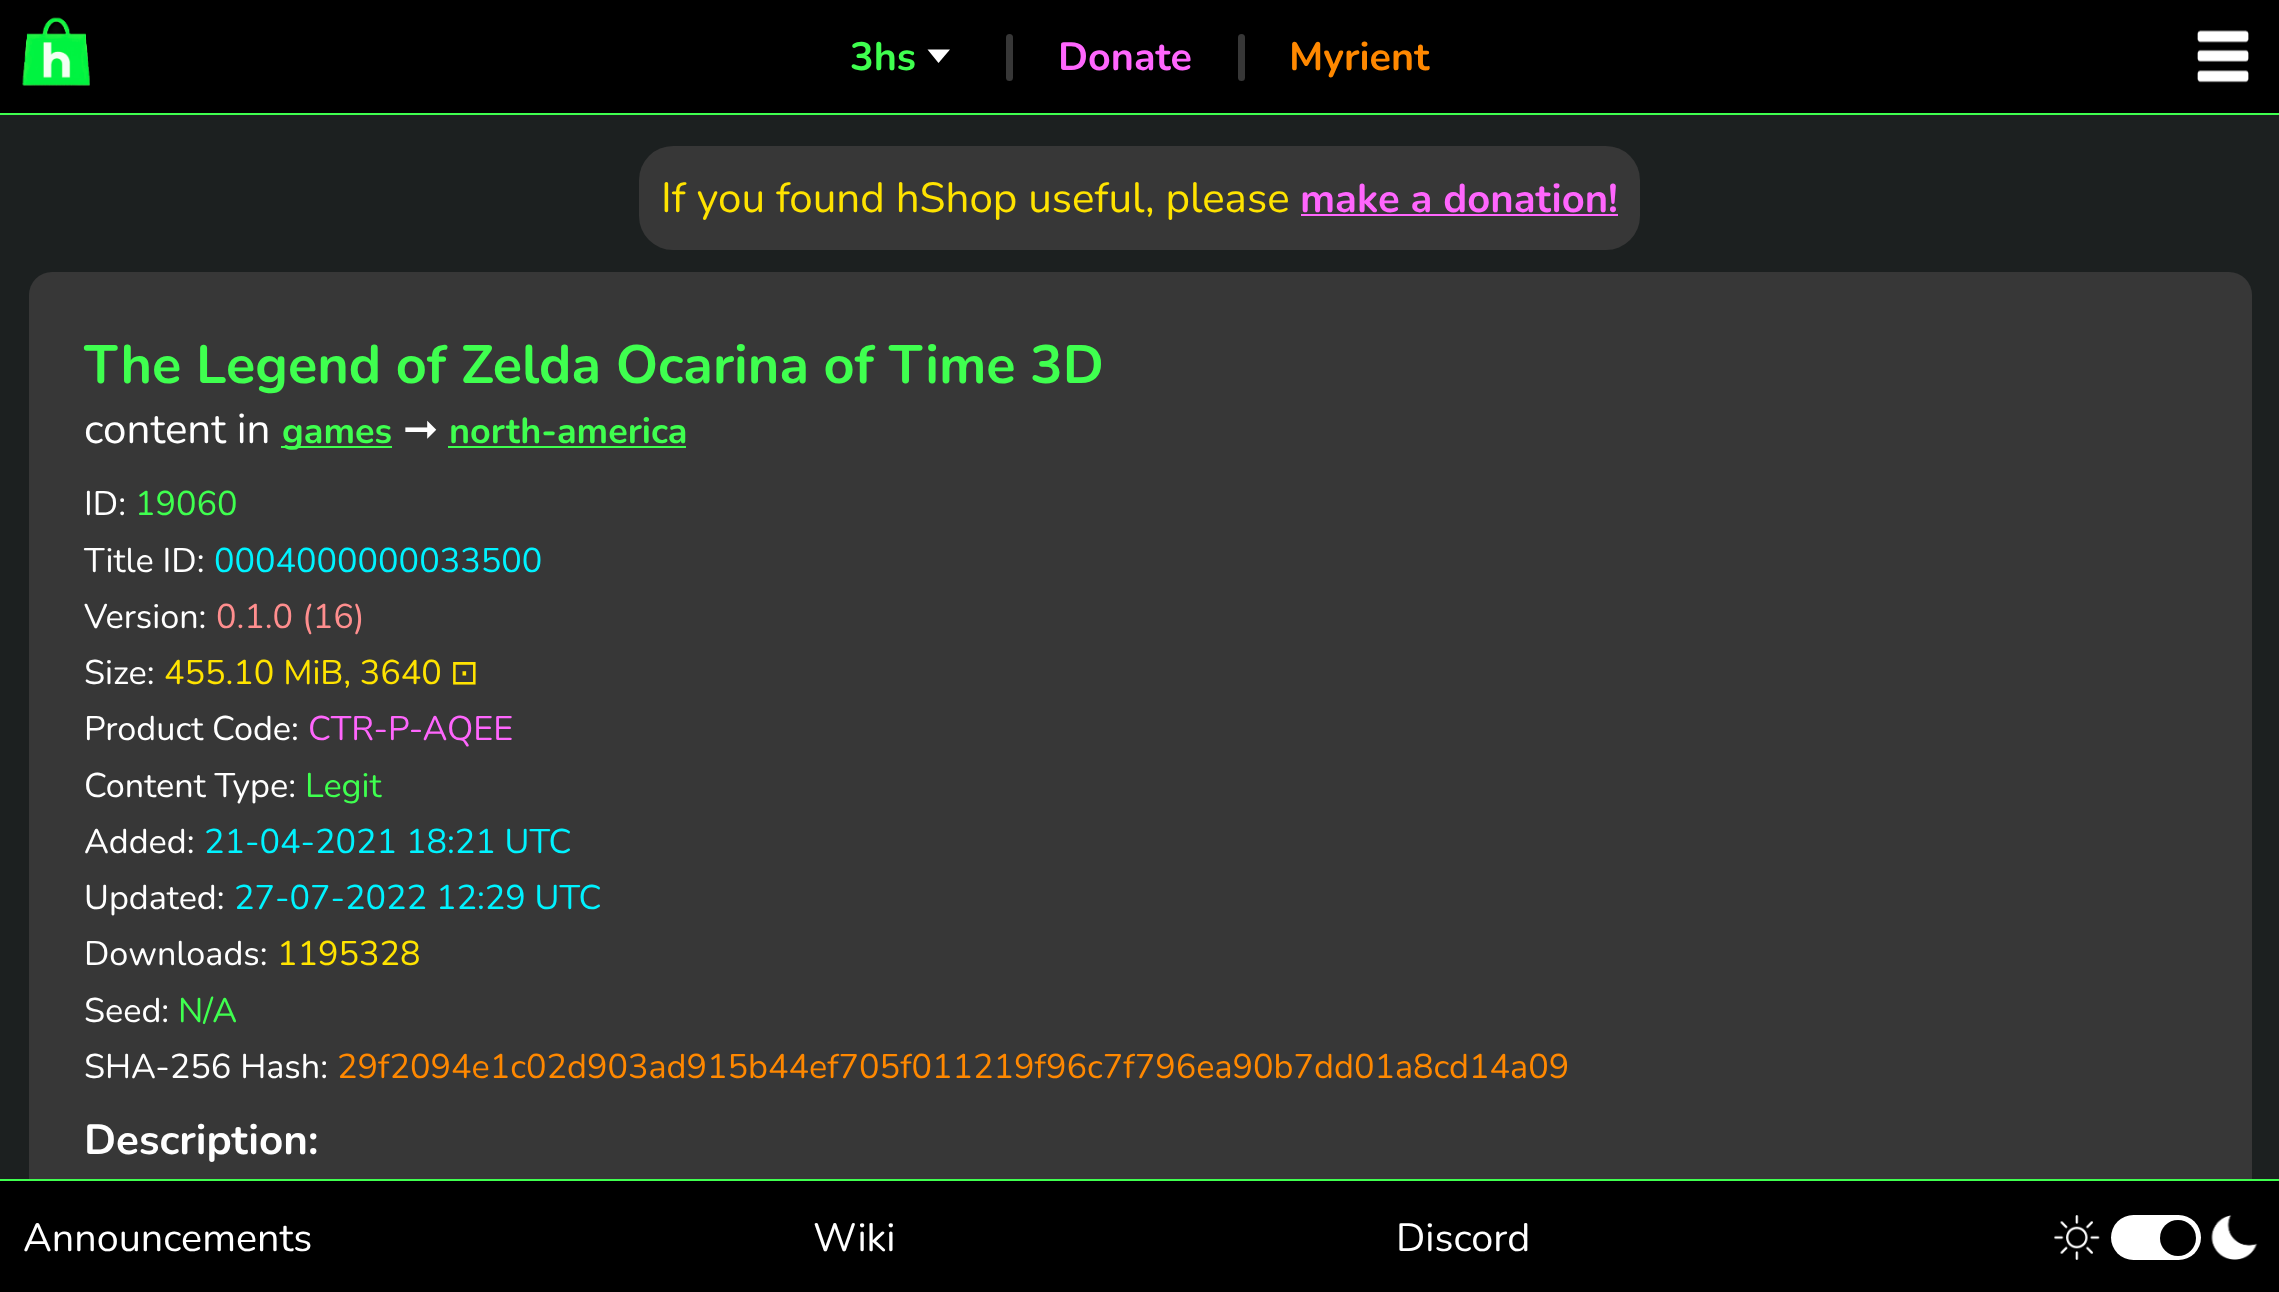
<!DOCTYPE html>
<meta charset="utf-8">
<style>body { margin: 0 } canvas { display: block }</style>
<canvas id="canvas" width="2279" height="1292"></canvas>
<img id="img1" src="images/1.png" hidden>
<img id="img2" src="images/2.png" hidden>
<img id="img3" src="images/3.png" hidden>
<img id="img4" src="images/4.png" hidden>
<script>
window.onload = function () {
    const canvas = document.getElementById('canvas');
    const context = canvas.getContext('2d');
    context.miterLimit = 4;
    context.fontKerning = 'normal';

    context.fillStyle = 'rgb(28, 32, 32)';
    context.fillRect(0, 0, 2279, 1292);
    context.fillStyle = 'rgb(0, 0, 0)';
    context.fillRect(0, 0, 2279, 113);
    context.fillStyle = 'rgb(63, 255, 79)';
    context.fillRect(0, 113, 2279, 2);
    context.drawImage(document.getElementById('img1'), 22, 17, 68, 69);
    context.fillStyle = 'rgb(255, 255, 255)';
    context.beginPath();
    context.moveTo(927.5, 49.5);
    context.lineTo(950, 49.5);
    context.lineTo(938.5, 63);
    context.closePath();
    context.fill();
    context.fillStyle = 'rgb(55, 55, 55)';
    context.beginPath();
    context.roundRect(1006, 34, 7, 47, 3.5);
    context.fill();
    context.beginPath();
    context.roundRect(1238, 34, 7, 47, 3.5);
    context.fill();
    context.drawImage(document.getElementById('img2'), 2197, 30, 52, 53);
    context.beginPath();
    context.roundRect(639, 146, 1001, 104, 34);
    context.fill();
    context.fillStyle = 'rgb(255, 102, 253)';
    context.fillRect(1301, 214, 317, 2);
    context.fillStyle = 'rgb(55, 55, 55)';
    context.beginPath();
    context.roundRect(29, 272, 2223, 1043, 23);
    context.fill();
    context.fillStyle = 'rgb(63, 255, 79)';
    context.fillRect(281, 446, 111, 2);
    context.fillRect(448, 446, 238, 2);
    context.fillStyle = 'rgb(0, 0, 0)';
    context.fillRect(0, 1181, 2279, 111);
    context.fillStyle = 'rgb(63, 255, 79)';
    context.fillRect(0, 1179, 2279, 2);
    context.drawImage(document.getElementById('img3'), 2054, 1215, 46, 45);
    context.fillStyle = 'rgb(255, 255, 255)';
    context.beginPath();
    context.roundRect(2111, 1215, 90, 45, 22.5);
    context.fill();
    context.fillStyle = 'rgb(0, 0, 0)';
    context.beginPath();
    context.arc(2178, 1238, 18, 0, 2 * Math.PI);
    context.fill();
    context.drawImage(document.getElementById('img4'), 2211, 1215, 47, 45);
    context.font = 'bold 39.5px Nunito';
    context.fillStyle = 'rgb(63, 255, 79)';
    context.fillText('3hs', 850, 70);
    context.fillStyle = 'rgb(255, 102, 253)';
    context.fillText('Donate', 1058, 70);
    context.fillStyle = 'rgb(255, 136, 0)';
    context.fillText('Myrient', 1289, 70);
    context.font = '42.1px Nunito';
    context.fillStyle = 'rgb(255, 227, 0)';
    context.fillText('If you found hShop useful, please', 661, 212);
    context.font = 'bold 40px Nunito';
    context.fillStyle = 'rgb(255, 102, 253)';
    context.fillText('make a donation!', 1300, 212);
    context.font = 'bold 54px Nunito';
    context.fillStyle = 'rgb(63, 255, 79)';
    context.fillText('The Legend of Zelda Ocarina of Time 3D', 84, 383);
    context.font = '42.1px Nunito';
    context.fillStyle = 'rgb(255, 255, 255)';
    context.fillText('content in', 84, 443);
    context.font = 'bold 36px Nunito';
    context.fillStyle = 'rgb(63, 255, 79)';
    context.fillText('games', 282, 443);
    context.font = '42.1px DejaVu Sans';
    context.fillStyle = 'rgb(255, 255, 255)';
    context.fillText('➞', 403, 443);
    context.font = 'bold 36px Nunito';
    context.fillStyle = 'rgb(63, 255, 79)';
    context.fillText('north-america', 449, 443);
    context.font = '34.2px Nunito';
    context.fillStyle = 'rgb(255, 255, 255)';
    context.fillText('ID:', 84, 515);
    context.fillStyle = 'rgb(63, 255, 79)';
    context.fillText('19060', 135, 515);
    context.fillStyle = 'rgb(255, 255, 255)';
    context.fillText('Title ID:', 84, 572);
    context.fillStyle = 'rgb(0, 243, 255)';
    context.fillText('0004000000033500', 214, 572);
    context.fillStyle = 'rgb(255, 255, 255)';
    context.fillText('Version:', 84, 628);
    context.fillStyle = 'rgb(255, 142, 142)';
    context.fillText('0.1.0 (16)', 216, 628);
    context.fillStyle = 'rgb(255, 255, 255)';
    context.fillText('Size:', 84, 684);
    context.fillStyle = 'rgb(255, 227, 0)';
    context.fillText('455.10 MiB, 3640', 164, 684);
    context.font = '34.2px DejaVu Sans';
    context.fillText('⊡', 450, 684);
    context.font = '34.2px Nunito';
    context.fillStyle = 'rgb(255, 255, 255)';
    context.fillText('Product Code:', 84, 740);
    context.fillStyle = 'rgb(255, 102, 253)';
    context.fillText('CTR-P-AQEE', 308, 740);
    context.fillStyle = 'rgb(255, 255, 255)';
    context.fillText('Content Type:', 84, 797);
    context.fillStyle = 'rgb(63, 255, 79)';
    context.fillText('Legit', 305, 797);
    context.fillStyle = 'rgb(255, 255, 255)';
    context.fillText('Added:', 84, 853);
    context.fillStyle = 'rgb(0, 243, 255)';
    context.fillText('21-04-2021 18:21 UTC', 204, 853);
    context.fillStyle = 'rgb(255, 255, 255)';
    context.fillText('Updated:', 84, 909);
    context.fillStyle = 'rgb(0, 243, 255)';
    context.fillText('27-07-2022 12:29 UTC', 234, 909);
    context.fillStyle = 'rgb(255, 255, 255)';
    context.fillText('Downloads:', 84, 965);
    context.fillStyle = 'rgb(255, 227, 0)';
    context.fillText('1195328', 277, 965);
    context.fillStyle = 'rgb(255, 255, 255)';
    context.fillText('Seed:', 84, 1022);
    context.fillStyle = 'rgb(63, 255, 79)';
    context.fillText('N/A', 178, 1022);
    context.fillStyle = 'rgb(255, 255, 255)';
    context.fillText('SHA-256 Hash:', 84, 1078);
    context.fillStyle = 'rgb(255, 136, 0)';
    context.fillText('29f2094e1c02d903ad915b44ef705f011219f96c7f796ea90b7dd01a8cd14a09', 337, 1078);
    context.font = 'bold 42.1px Nunito';
    context.fillStyle = 'rgb(255, 255, 255)';
    context.fillText('Description:', 84, 1154);
    context.font = '39.5px Nunito';
    context.fillText('Announcements', 23, 1251);
    context.fillText('Wiki', 813, 1251);
    context.fillText('Discord', 1396, 1251);
};
</script>
